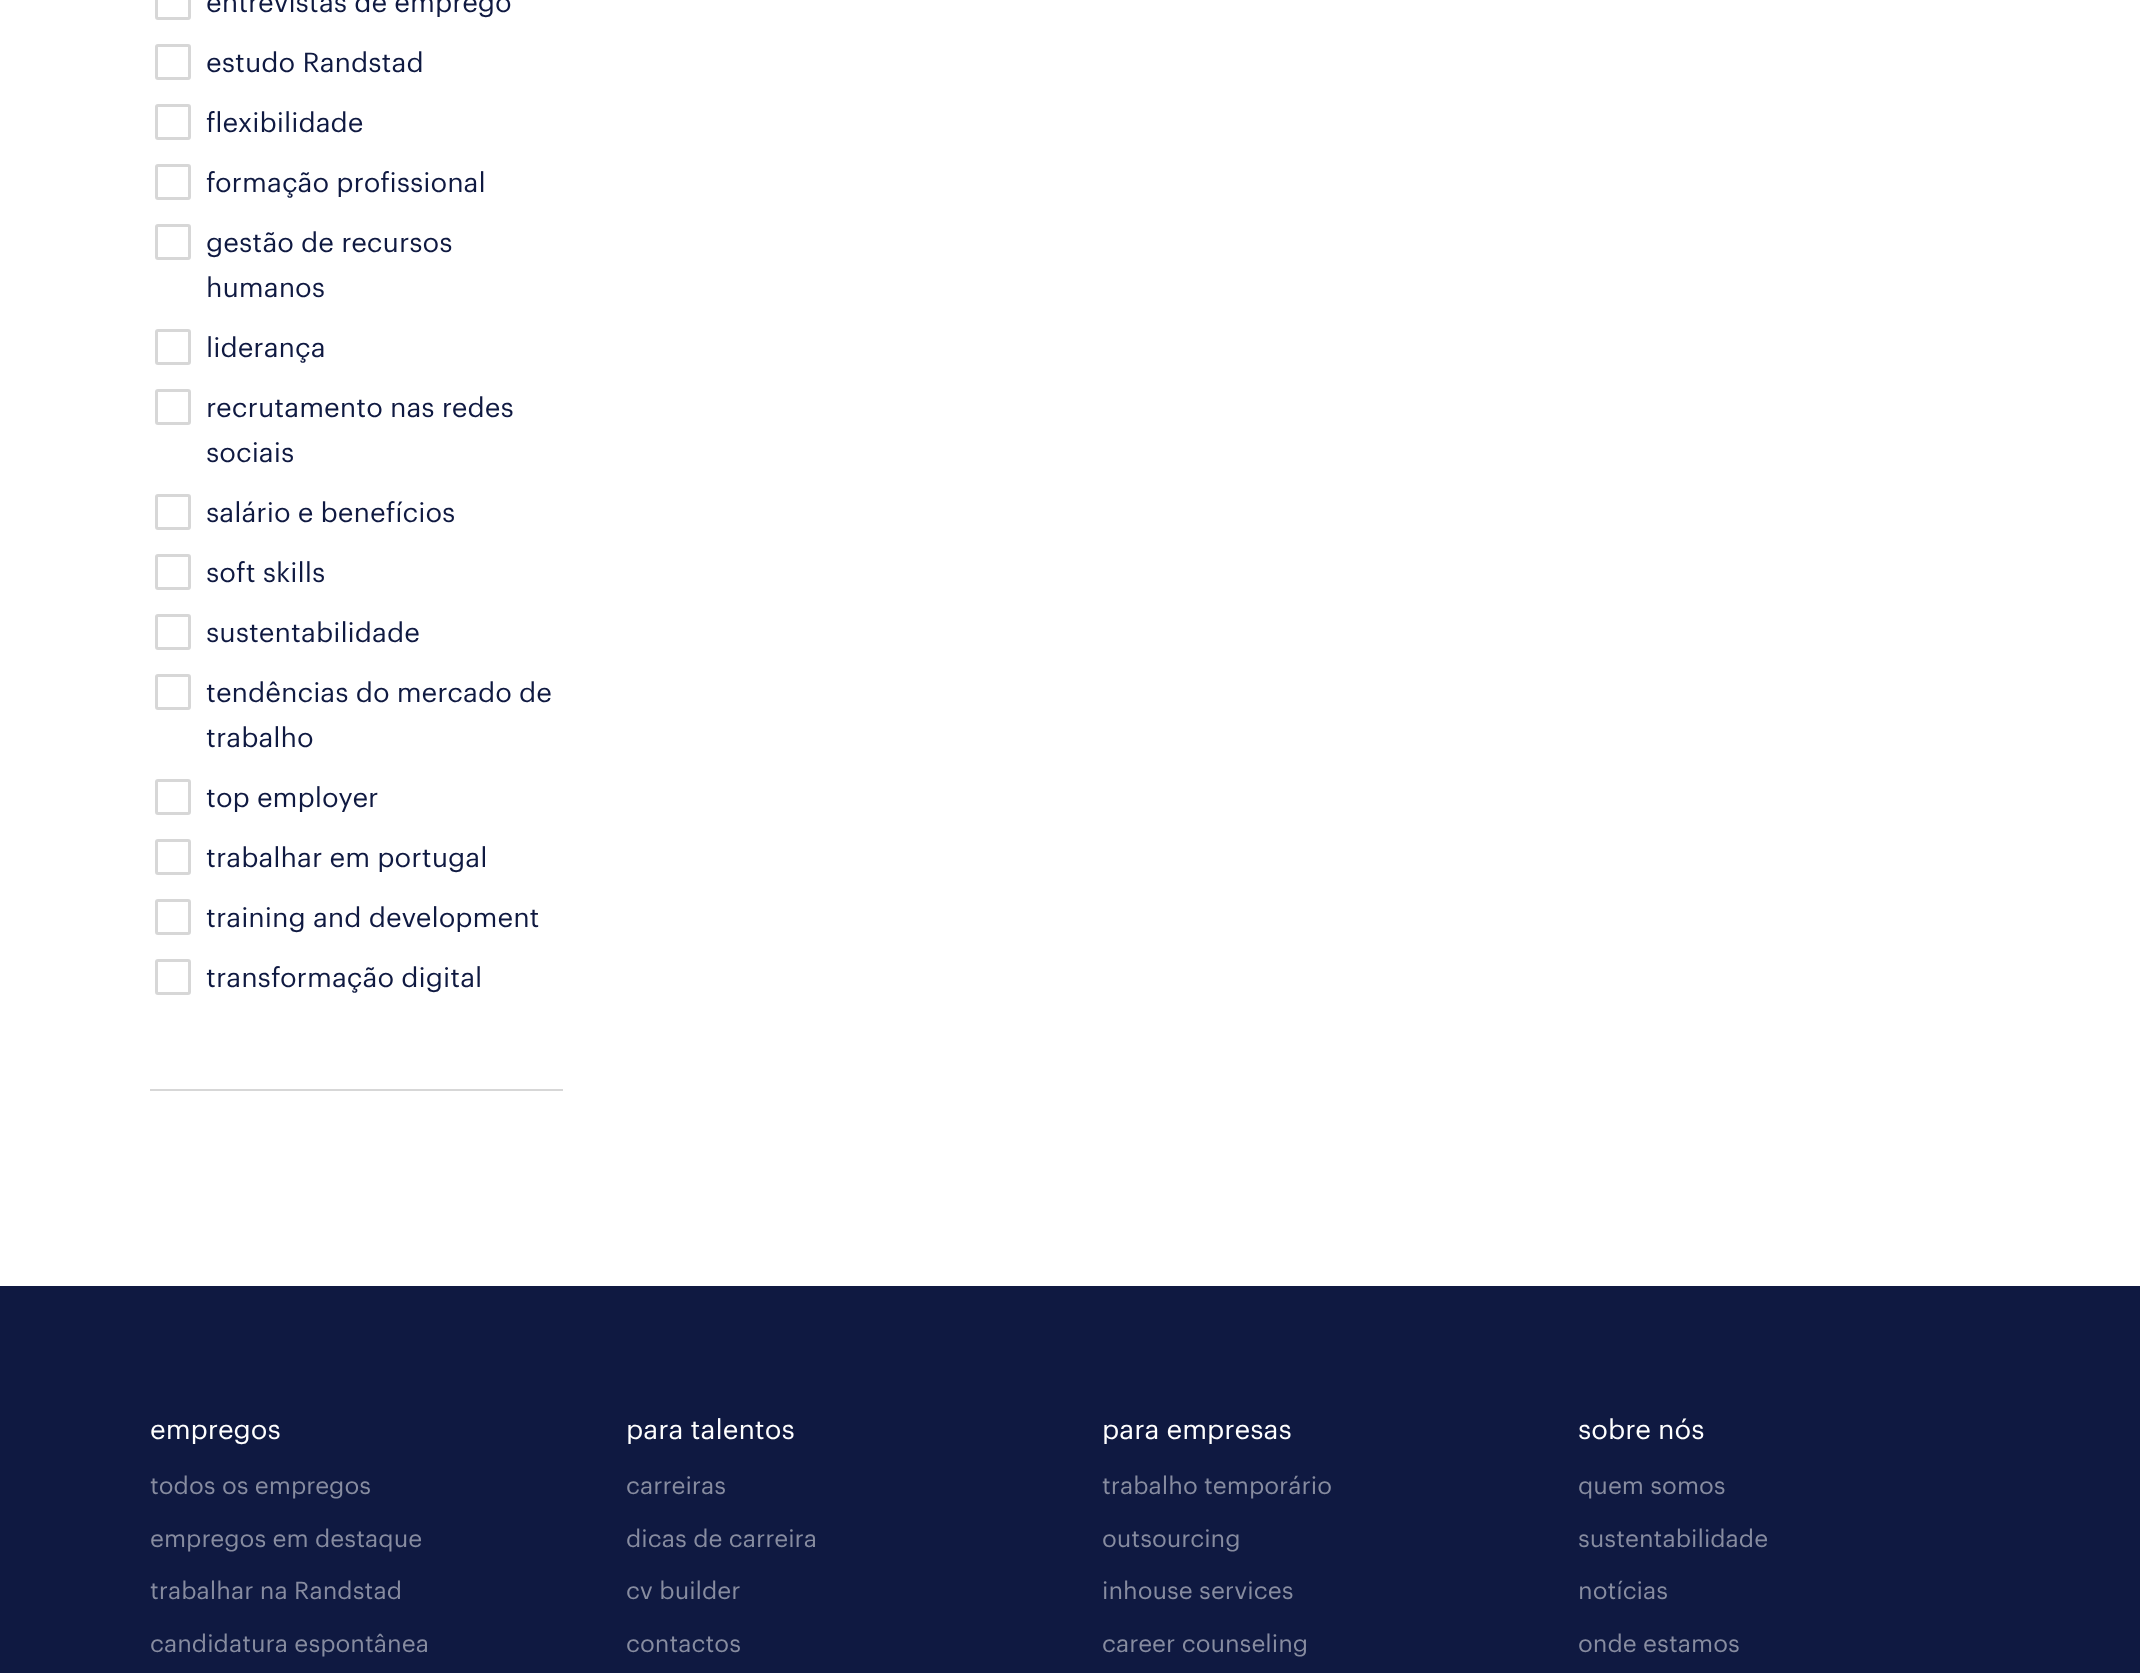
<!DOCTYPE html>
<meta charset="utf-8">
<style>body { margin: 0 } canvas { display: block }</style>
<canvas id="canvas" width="2140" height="1673"></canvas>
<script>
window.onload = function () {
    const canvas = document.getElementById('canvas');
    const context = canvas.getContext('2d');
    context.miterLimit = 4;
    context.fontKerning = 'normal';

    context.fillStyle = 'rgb(255, 255, 255)';
    context.fillRect(0, 0, 2140, 1673);
    context.fillStyle = 'rgb(215, 215, 215)';
    context.fillRect(150, 1089, 413, 2);
    context.beginPath();
    context.roundRect(156.5, -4.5, 33, 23, 1.5);
    context.strokeStyle = 'rgb(215, 215, 215)';
    context.lineWidth = 3;
    context.stroke();
    context.beginPath();
    context.roundRect(156.5, 45.5, 33, 33, 1.5);
    context.stroke();
    context.beginPath();
    context.roundRect(156.5, 105.5, 33, 33, 1.5);
    context.stroke();
    context.beginPath();
    context.roundRect(156.5, 165.5, 33, 33, 1.5);
    context.stroke();
    context.beginPath();
    context.roundRect(156.5, 225.5, 33, 33, 1.5);
    context.stroke();
    context.beginPath();
    context.roundRect(156.5, 330.5, 33, 33, 1.5);
    context.stroke();
    context.beginPath();
    context.roundRect(156.5, 390.5, 33, 33, 1.5);
    context.stroke();
    context.beginPath();
    context.roundRect(156.5, 495.5, 33, 33, 1.5);
    context.stroke();
    context.beginPath();
    context.roundRect(156.5, 555.5, 33, 33, 1.5);
    context.stroke();
    context.beginPath();
    context.roundRect(156.5, 615.5, 33, 33, 1.5);
    context.stroke();
    context.beginPath();
    context.roundRect(156.5, 675.5, 33, 33, 1.5);
    context.stroke();
    context.beginPath();
    context.roundRect(156.5, 780.5, 33, 33, 1.5);
    context.stroke();
    context.beginPath();
    context.roundRect(156.5, 840.5, 33, 33, 1.5);
    context.stroke();
    context.beginPath();
    context.roundRect(156.5, 900.5, 33, 33, 1.5);
    context.stroke();
    context.beginPath();
    context.roundRect(156.5, 960.5, 33, 33, 1.5);
    context.stroke();
    context.fillStyle = 'rgb(15, 25, 65)';
    context.fillRect(0, 1286, 2140, 387);
    context.font = '27px Graphik';
    context.fillText('entrevistas de emprego', 206, 12);
    context.fillText('estudo Randstad', 206, 72);
    context.fillText('flexibilidade', 206, 132);
    context.fillText('formação profissional', 206, 192);
    context.fillText('gestão de recursos', 206, 252);
    context.fillText('humanos', 206, 297);
    context.fillText('liderança', 206, 357);
    context.fillText('recrutamento nas redes', 206, 417);
    context.fillText('sociais', 206, 462);
    context.fillText('salário e benefícios', 206, 522);
    context.fillText('soft skills', 206, 582);
    context.fillText('sustentabilidade', 206, 642);
    context.fillText('tendências do mercado de', 206, 702);
    context.fillText('trabalho', 206, 747);
    context.fillText('top employer', 206, 807);
    context.fillText('trabalhar em portugal', 206, 867);
    context.fillText('training and development', 206, 927);
    context.fillText('transformação digital', 206, 987);
    context.fillStyle = 'rgb(255, 255, 255)';
    context.fillText('empregos', 150, 1439);
    context.font = '24px Graphik';
    context.fillStyle = 'rgb(135, 140, 160)';
    context.fillText('todos os empregos', 150, 1494);
    context.fillText('empregos em destaque', 150, 1547);
    context.fillText('trabalhar na Randstad', 150, 1599);
    context.fillText('candidatura espontânea', 150, 1652);
    context.font = '27px Graphik';
    context.fillStyle = 'rgb(255, 255, 255)';
    context.fillText('para talentos', 626, 1439);
    context.font = '24px Graphik';
    context.fillStyle = 'rgb(135, 140, 160)';
    context.fillText('carreiras', 626, 1494);
    context.fillText('dicas de carreira', 626, 1547);
    context.fillText('cv builder', 626, 1599);
    context.fillText('contactos', 626, 1652);
    context.font = '27px Graphik';
    context.fillStyle = 'rgb(255, 255, 255)';
    context.fillText('para empresas', 1102, 1439);
    context.font = '24px Graphik';
    context.fillStyle = 'rgb(135, 140, 160)';
    context.fillText('trabalho temporário', 1102, 1494);
    context.fillText('outsourcing', 1102, 1547);
    context.fillText('inhouse services', 1102, 1599);
    context.fillText('career counseling', 1102, 1652);
    context.font = '27px Graphik';
    context.fillStyle = 'rgb(255, 255, 255)';
    context.fillText('sobre nós', 1578, 1439);
    context.font = '24px Graphik';
    context.fillStyle = 'rgb(135, 140, 160)';
    context.fillText('quem somos', 1578, 1494);
    context.fillText('sustentabilidade', 1578, 1547);
    context.fillText('notícias', 1578, 1599);
    context.fillText('onde estamos', 1578, 1652);
};
</script>
